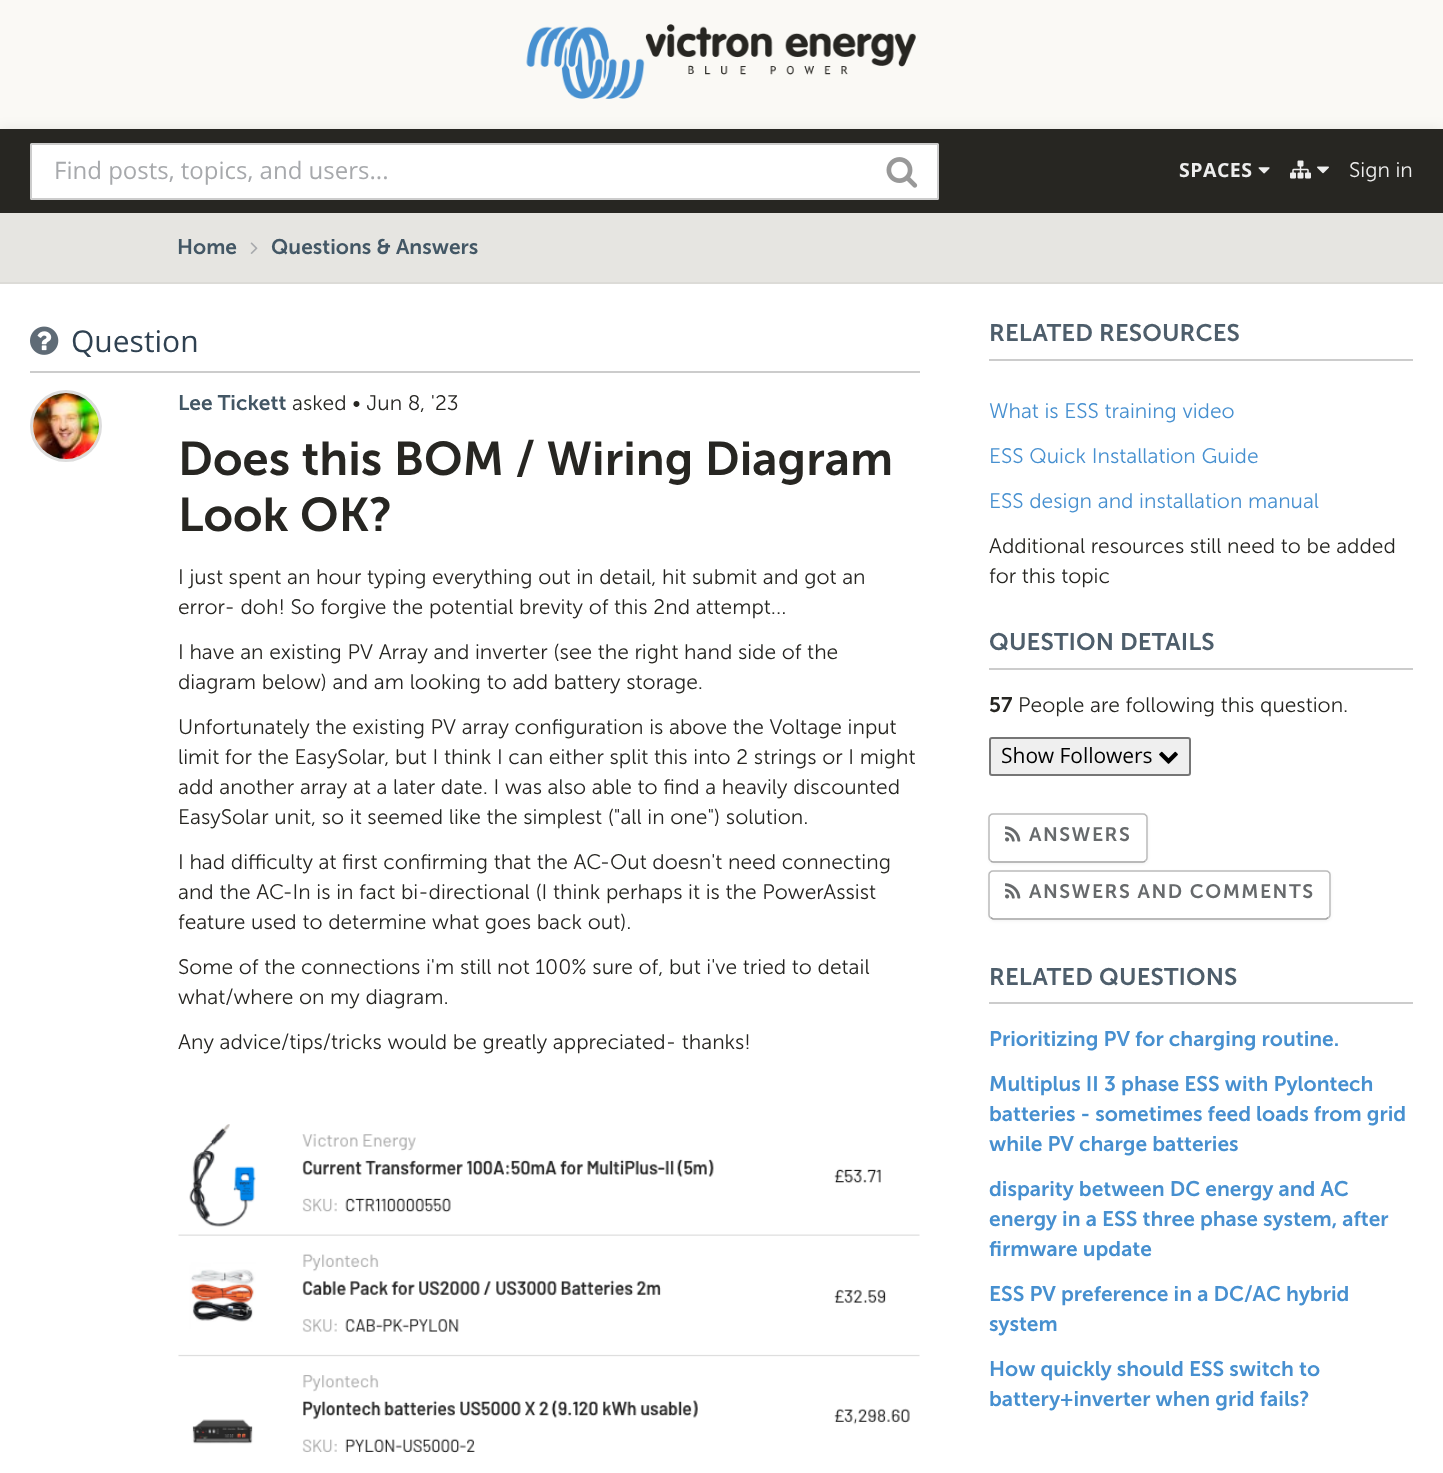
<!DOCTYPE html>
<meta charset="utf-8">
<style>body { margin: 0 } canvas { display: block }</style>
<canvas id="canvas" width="1443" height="1473"></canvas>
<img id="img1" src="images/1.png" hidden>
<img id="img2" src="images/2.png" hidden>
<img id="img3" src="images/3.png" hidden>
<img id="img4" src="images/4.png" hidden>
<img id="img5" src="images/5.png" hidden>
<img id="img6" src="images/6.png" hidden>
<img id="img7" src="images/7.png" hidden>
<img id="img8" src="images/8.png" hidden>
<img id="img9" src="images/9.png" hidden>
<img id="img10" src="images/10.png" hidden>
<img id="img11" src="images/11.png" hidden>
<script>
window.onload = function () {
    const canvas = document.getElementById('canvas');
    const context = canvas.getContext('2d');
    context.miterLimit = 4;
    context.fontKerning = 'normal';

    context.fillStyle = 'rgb(255, 255, 255)';
    context.fillRect(0, 0, 1443, 1473);
    context.fillStyle = 'rgb(250, 249, 245)';
    context.fillRect(0, 0, 1443, 129);
    context.drawImage(document.getElementById('img1'), 526, 24, 390, 75);
    context.fillStyle = 'rgba(0, 0, 0, 0.1)';
    context.filter = 'blur(7.5px)';
    context.beginPath();
    context.rect(0, 131, 1443, 84);
    context.fill();
    context.filter = 'none';
    context.fillStyle = 'rgb(39, 38, 34)';
    context.fillRect(0, 129, 1443, 84);
    context.fillStyle = 'rgb(255, 255, 255)';
    context.beginPath();
    context.roundRect(31, 144, 907, 55, 0.5);
    context.fill();
    context.strokeStyle = 'rgb(204, 204, 204)';
    context.lineWidth = 2;
    context.stroke();
    context.drawImage(document.getElementById('img2'), 886, 157, 32, 31);
    context.drawImage(document.getElementById('img3'), 1258, 167, 12, 7);
    context.drawImage(document.getElementById('img4'), 1290, 160, 21, 19);
    context.drawImage(document.getElementById('img5'), 1317, 166, 12, 8);
    context.fillStyle = 'rgb(230, 229, 225)';
    context.fillRect(0, 213, 1443, 69);
    context.fillStyle = 'rgb(220, 219, 215)';
    context.fillRect(0, 282, 1443, 2);
    context.drawImage(document.getElementById('img6'), 250, 242, 8, 12);
    context.fillStyle = 'rgb(204, 204, 204)';
    context.fillRect(30, 371, 890, 2);
    context.drawImage(document.getElementById('img7'), 30, 326, 29, 29);
    context.beginPath();
    context.arc(66, 426, 34.5, 0, 2 * Math.PI);
    context.strokeStyle = 'rgb(221, 221, 221)';
    context.lineWidth = 3;
    context.stroke();
    context.drawImage(document.getElementById('img8'), 33, 393, 66, 66);
    context.drawImage(document.getElementById('img9'), 178, 1124, 742, 329);
    context.fillRect(989, 359, 424, 2);
    context.fillRect(989, 668, 424, 2);
    context.fillStyle = 'rgb(239, 239, 239)';
    context.beginPath();
    context.roundRect(990, 738, 200, 37, 2);
    context.fill();
    context.strokeStyle = 'rgb(118, 118, 118)';
    context.lineWidth = 2;
    context.stroke();
    context.drawImage(document.getElementById('img10'), 1159, 751, 19, 13);
    context.fillStyle = 'rgba(0, 0, 0, 0.05)';
    context.filter = 'blur(1.5px)';
    context.beginPath();
    context.roundRect(989, 815, 159, 49, 5);
    context.fill();
    context.filter = 'none';
    context.fillStyle = 'rgb(255, 255, 255)';
    context.beginPath();
    context.roundRect(989, 813, 159, 50, 5);
    context.fill();
    context.beginPath();
    context.moveTo(1145.5, 860.5);
    context.bezierCurveTo(1145, 861.5, 1144, 862, 1143, 862);
    context.lineTo(993, 862);
    context.bezierCurveTo(992, 862, 991, 861.5, 990.5, 860.5);
    context.strokeStyle = 'rgb(162, 162, 162)';
    context.lineWidth = 1.5;
    context.stroke();
    context.beginPath();
    context.moveTo(990.5, 860.5);
    context.bezierCurveTo(989.5, 860, 989, 859, 989, 858);
    context.lineTo(989, 817.5);
    context.bezierCurveTo(989, 816.5, 989.5, 815.5, 990.5, 815);
    context.bezierCurveTo(991, 814, 992, 814, 993, 814);
    context.lineTo(1143, 814);
    context.bezierCurveTo(1144, 814, 1145, 814, 1145.5, 815);
    context.bezierCurveTo(1146.5, 815.5, 1147, 816.5, 1147, 817.5);
    context.lineTo(1147, 858);
    context.bezierCurveTo(1147, 859, 1146.5, 860, 1145.5, 860.5);
    context.strokeStyle = 'rgb(187, 187, 187)';
    context.stroke();
    context.drawImage(document.getElementById('img11'), 1005, 826, 16, 16);
    context.fillStyle = 'rgba(0, 0, 0, 0.05)';
    context.filter = 'blur(1.5px)';
    context.beginPath();
    context.roundRect(989, 872, 342, 49, 5);
    context.fill();
    context.filter = 'none';
    context.fillStyle = 'rgb(255, 255, 255)';
    context.beginPath();
    context.roundRect(989, 870, 342, 50, 5);
    context.fill();
    context.beginPath();
    context.moveTo(1328.5, 917.5);
    context.lineTo(1326, 919);
    context.lineTo(993, 919);
    context.lineTo(990.5, 917.5);
    context.strokeStyle = 'rgb(162, 162, 162)';
    context.stroke();
    context.beginPath();
    context.moveTo(990.5, 917.5);
    context.bezierCurveTo(989.5, 917, 989, 916, 989, 915);
    context.lineTo(989, 874.5);
    context.bezierCurveTo(989, 873.5, 989.5, 872.5, 990.5, 872);
    context.bezierCurveTo(991, 871, 992, 871, 993, 871);
    context.lineTo(1326, 871);
    context.bezierCurveTo(1327, 871, 1328, 871, 1328.5, 872);
    context.bezierCurveTo(1329.5, 872.5, 1330, 873.5, 1330, 874.5);
    context.lineTo(1330, 915);
    context.bezierCurveTo(1330, 916, 1329.5, 917, 1328.5, 917.5);
    context.strokeStyle = 'rgb(187, 187, 187)';
    context.stroke();
    context.drawImage(document.getElementById('img11'), 1005, 883, 16, 16);
    context.fillStyle = 'rgb(204, 204, 204)';
    context.fillRect(989, 1002, 424, 2);
    context.font = '24px Open Sans';
    context.fillStyle = 'rgb(167, 169, 172)';
    context.fillText('Find posts, topics, and users...', 54, 179);
    context.letterSpacing = '0.5px';
    context.font = 'bold 19.5px Open Sans';
    context.fillStyle = 'rgb(238, 238, 238)';
    context.fillText('SPACES', 1179, 177);
    context.letterSpacing = '0px';
    context.font = '21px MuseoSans';
    context.fillText('Sign in', 1349, 177);
    context.font = '21px "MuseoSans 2"';
    context.fillStyle = 'rgb(67, 87, 101)';
    context.fillText('Home', 177, 254);
    context.fillText('Questions & Answers', 271, 254);
    context.font = '30px Open Sans';
    context.fillStyle = 'rgb(47, 65, 81)';
    context.fillText('Question', 71, 352);
    context.font = '21px "MuseoSans 2"';
    context.fillStyle = 'rgb(67, 87, 101)';
    context.fillText('Lee Tickett', 178, 410);
    context.font = '21px MuseoSans';
    context.fillStyle = 'rgb(39, 38, 34)';
    context.fillText('asked • Jun 8, \'23', 292, 410);
    context.font = '47.25px "MuseoSans 2"';
    context.fillText('Does this BOM / Wiring Diagram', 178, 475);
    context.fillText('Look OK?', 178, 531);
    context.font = '21px MuseoSans';
    context.fillText('I just spent an hour typing everything out in detail, hit submit and got an', 178, 584);
    context.fillText('error- doh! So forgive the potential brevity of this 2nd attempt...', 178, 614);
    context.fillText('I have an existing PV Array and inverter (see the right hand side of the', 178, 659);
    context.fillText('diagram below) and am looking to add battery storage.', 178, 689);
    context.fillText('Unfortunately the existing PV array configuration is above the Voltage input', 178, 734);
    context.fillText('limit for the EasySolar, but I think I can either split this into 2 strings or I might', 178, 764);
    context.fillText('add another array at a later date. I was also able to find a heavily discounted', 178, 794);
    context.fillText('EasySolar unit, so it seemed like the simplest ("all in one") solution.', 178, 824);
    context.fillText('I had difficulty at first confirming that the AC-Out doesn\'t need connecting', 178, 869);
    context.fillText('and the AC-In is in fact bi-directional (I think perhaps it is the PowerAssist', 178, 899);
    context.fillText('feature used to determine what goes back out).', 178, 929);
    context.fillText('Some of the connections i\'m still not 100% sure of, but i\'ve tried to detail', 178, 974);
    context.fillText('what/where on my diagram.', 178, 1004);
    context.fillText('Any advice/tips/tricks would be greatly appreciated- thanks!', 178, 1049);
    context.letterSpacing = '0.1px';
    context.font = '24px "MuseoSans 2"';
    context.fillStyle = 'rgb(78, 94, 107)';
    context.fillText('RELATED RESOURCES', 989, 341);
    context.letterSpacing = '0px';
    context.font = '21px MuseoSans';
    context.fillStyle = 'rgb(71, 144, 208)';
    context.fillText('What is ESS training video', 989, 418);
    context.fillText('ESS Quick Installation Guide', 989, 463);
    context.fillText('ESS design and installation manual', 989, 508);
    context.fillStyle = 'rgb(39, 38, 34)';
    context.fillText('Additional resources still need to be added', 989, 553);
    context.fillText('for this topic', 989, 583);
    context.letterSpacing = '0.1px';
    context.font = '24px "MuseoSans 2"';
    context.fillStyle = 'rgb(78, 94, 107)';
    context.fillText('QUESTION DETAILS', 989, 650);
    context.letterSpacing = '0px';
    context.font = '21px "MuseoSans 2"';
    context.fillStyle = 'rgb(39, 38, 34)';
    context.fillText('57', 989, 712);
    context.font = '21px MuseoSans';
    context.fillText('People are following this question.', 1018, 712);
    context.font = '21px Open Sans';
    context.fillStyle = 'rgb(0, 0, 0)';
    context.fillText('Show Followers', 1001, 763);
    context.letterSpacing = '1.5px';
    context.font = '19.5px "MuseoSans 2"';
    context.fillStyle = 'rgb(103, 106, 108)';
    context.fillText('ANSWERS', 1029, 841);
    context.fillText('ANSWERS AND COMMENTS', 1029, 898);
    context.letterSpacing = '0.1px';
    context.font = '24px "MuseoSans 2"';
    context.fillStyle = 'rgb(78, 94, 107)';
    context.fillText('RELATED QUESTIONS', 989, 985);
    context.letterSpacing = '0px';
    context.font = '21px "MuseoSans 2"';
    context.fillStyle = 'rgb(71, 144, 208)';
    context.fillText('Prioritizing PV for charging routine.', 989, 1046);
    context.fillText('Multiplus II 3 phase ESS with Pylontech', 989, 1091);
    context.fillText('batteries - sometimes feed loads from grid', 989, 1121);
    context.fillText('while PV charge batteries', 989, 1151);
    context.fillText('disparity between DC energy and AC', 989, 1196);
    context.fillText('energy in a ESS three phase system, after', 989, 1226);
    context.fillText('firmware update', 989, 1256);
    context.fillText('ESS PV preference in a DC/AC hybrid', 989, 1301);
    context.fillText('system', 989, 1331);
    context.fillText('How quickly should ESS switch to', 989, 1376);
    context.fillText('battery+inverter when grid fails?', 989, 1406);
};
</script>
